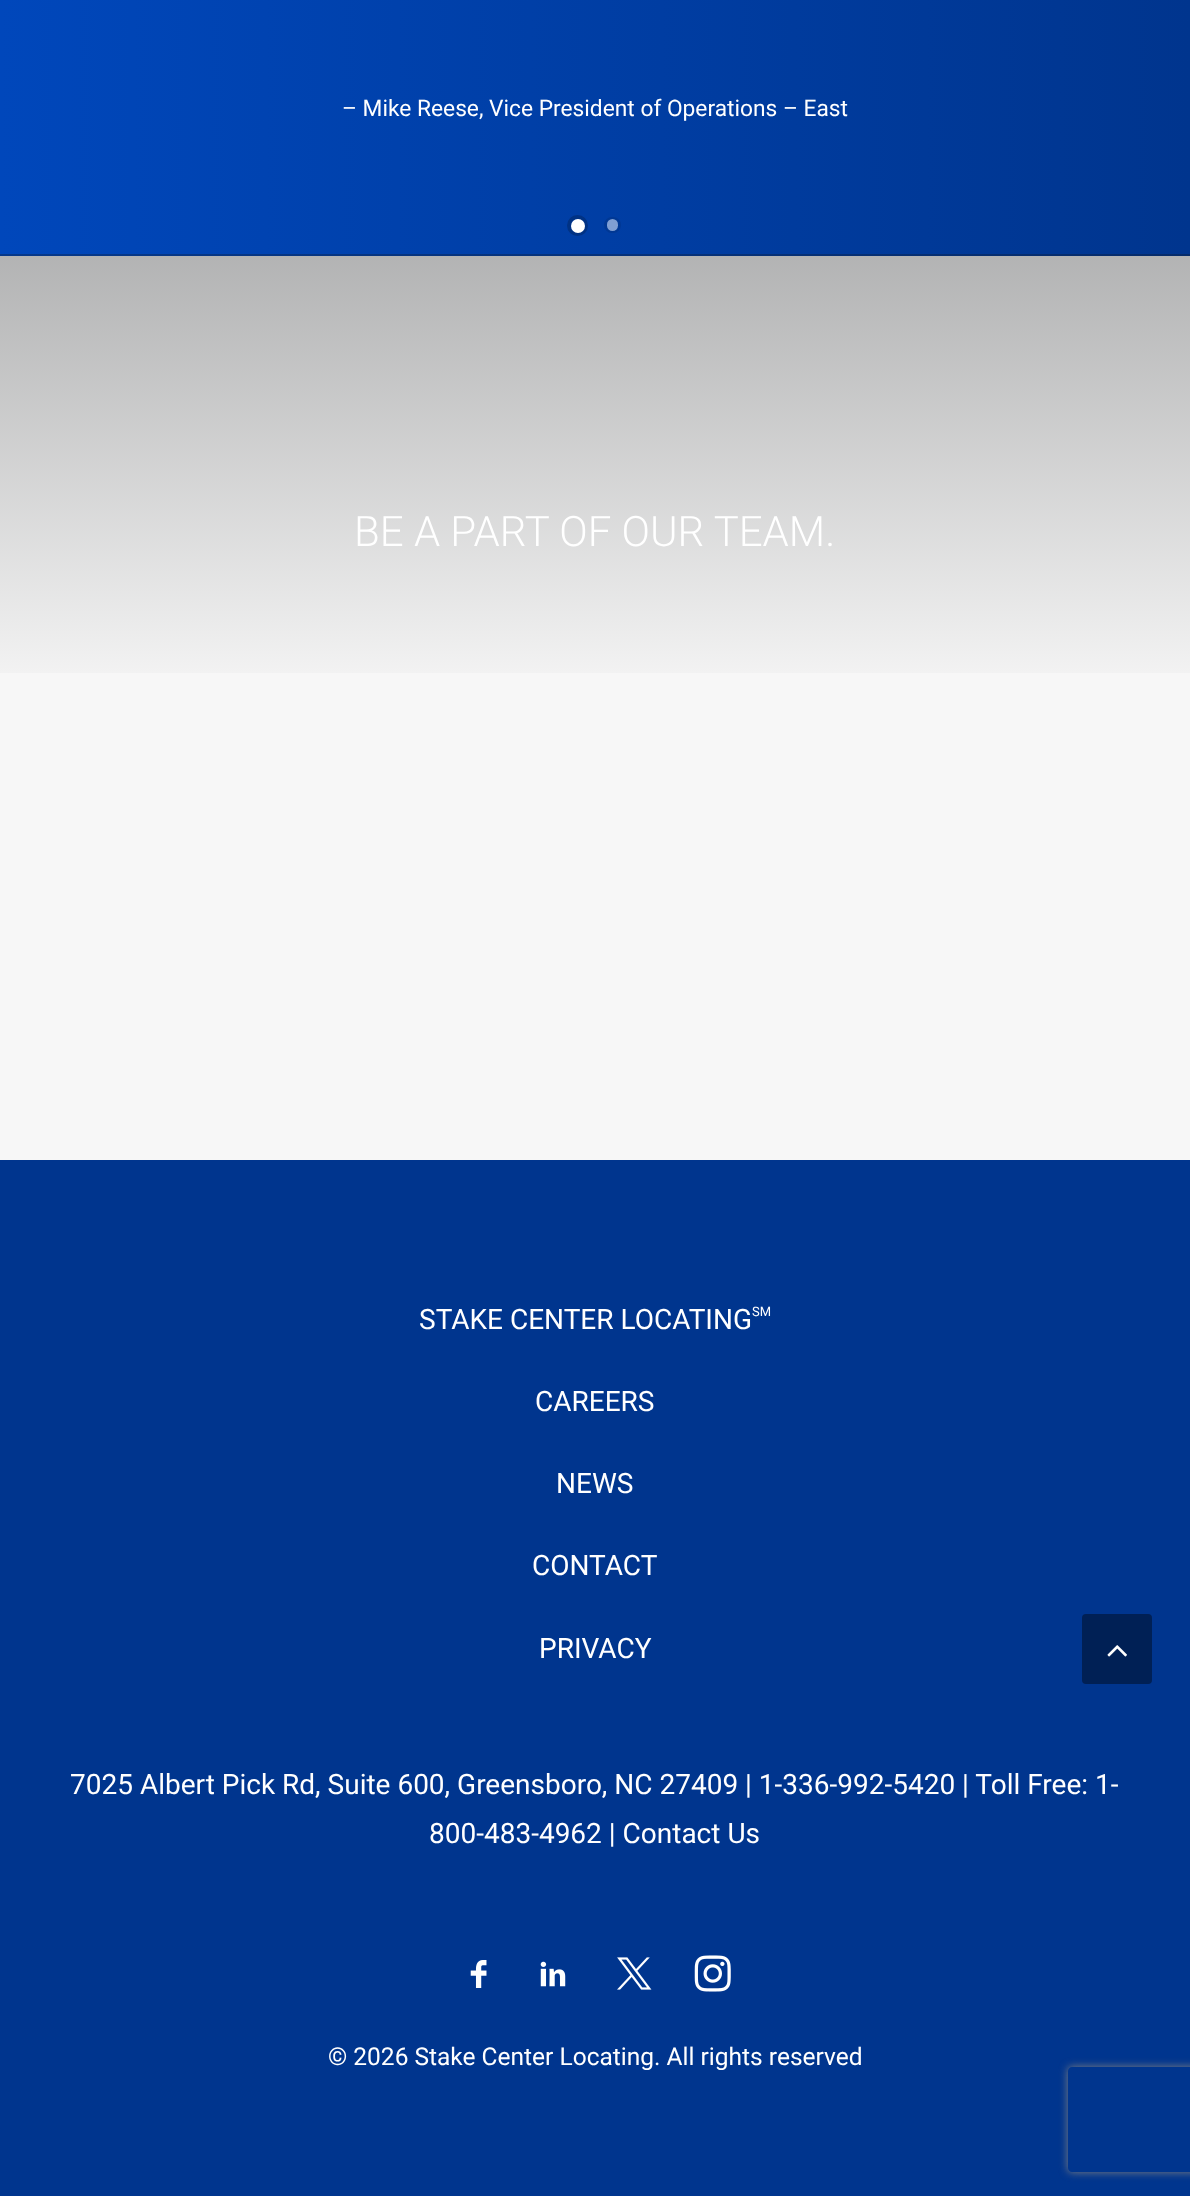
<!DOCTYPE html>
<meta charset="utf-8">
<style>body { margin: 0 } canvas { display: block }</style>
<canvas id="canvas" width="1190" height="2196"></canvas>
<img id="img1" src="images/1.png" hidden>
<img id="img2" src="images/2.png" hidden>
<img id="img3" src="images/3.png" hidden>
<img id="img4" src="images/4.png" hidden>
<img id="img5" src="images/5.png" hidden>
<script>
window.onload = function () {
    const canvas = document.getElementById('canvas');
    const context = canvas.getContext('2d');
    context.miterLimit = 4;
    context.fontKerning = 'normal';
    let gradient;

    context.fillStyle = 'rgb(255, 255, 255)';
    context.fillRect(0, 0, 1190, 2196);
    gradient = context.createLinearGradient(0, 0, 1190, 0);
    gradient.addColorStop(0, 'rgb(0, 71, 187)');
    gradient.addColorStop(1, 'rgb(0, 53, 142)');
    context.fillStyle = gradient;
    context.fillRect(0, 0, 1190, 256);
    context.beginPath();
    context.arc(577.5, 225.5, 8.5, 0, 2 * Math.PI);
    context.strokeStyle = 'rgb(0, 50, 132)';
    context.lineWidth = 4;
    context.stroke();
    context.fillStyle = 'rgb(255, 255, 255)';
    context.beginPath();
    context.arc(578, 226, 7, 0, 2 * Math.PI);
    context.fill();
    context.beginPath();
    context.roundRect(605.5, 218.5, 14, 13, 6.5);
    context.strokeStyle = 'rgb(0, 56, 148)';
    context.lineWidth = 3;
    context.stroke();
    context.fillStyle = 'rgb(128, 159, 210)';
    context.beginPath();
    context.roundRect(607, 219, 11, 12, 5.5);
    context.fill();
    context.fillStyle = 'rgb(247, 247, 247)';
    context.fillRect(0, 256, 1190, 904);
    gradient = context.createLinearGradient(595, 706, 595, 253);
    gradient.addColorStop(0, 'rgba(20, 22, 24, 0)');
    gradient.addColorStop(1, 'rgba(20, 22, 24, 0.3)');
    context.fillStyle = gradient;
    context.fillRect(0, 254, 1190, 419);
    context.fillStyle = 'rgb(0, 53, 142)';
    context.fillRect(0, 1160, 1190, 1036);
    context.drawImage(document.getElementById('img1'), 470, 1960, 17, 28);
    context.drawImage(document.getElementById('img2'), 540, 1961, 26, 26);
    context.drawImage(document.getElementById('img3'), 617, 1957, 35, 33);
    context.drawImage(document.getElementById('img4'), 694, 1955, 37, 37);
    context.fillStyle = 'rgb(0, 32, 85)';
    context.beginPath();
    context.roundRect(1082, 1614, 70, 70, 4);
    context.fill();
    context.drawImage(document.getElementById('img5'), 1107, 1645, 20, 12);
    context.save();
    context.beginPath();
    context.moveTo(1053, 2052);
    context.lineTo(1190, 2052);
    context.lineTo(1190, 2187);
    context.lineTo(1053, 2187);
    context.closePath();
    context.moveTo(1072, 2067);
    context.lineTo(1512, 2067);
    context.bezierCurveTo(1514, 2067, 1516, 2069, 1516, 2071);
    context.lineTo(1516, 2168);
    context.bezierCurveTo(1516, 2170, 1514, 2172, 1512, 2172);
    context.lineTo(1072, 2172);
    context.bezierCurveTo(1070, 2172, 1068, 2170, 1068, 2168);
    context.lineTo(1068, 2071);
    context.bezierCurveTo(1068, 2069, 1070, 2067, 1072, 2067);
    context.closePath();
    context.clip('evenodd');
    context.fillStyle = 'rgb(128, 128, 128)';
    context.filter = 'blur(4.5px)';
    context.beginPath();
    context.roundRect(1068, 2067, 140, 105, 4);
    context.fill();
    context.filter = 'none';
    context.restore();
    context.font = '22.75px Roboto';
    context.fillStyle = 'rgb(255, 255, 255)';
    context.fillText('– Mike Reese, Vice President of Operations – East', 342, 116);
    context.font = '300 42px Roboto';
    context.fillText('BE A PART OF OUR TEAM.', 354, 546);
    context.font = '28px Roboto';
    context.fillText('STAKE CENTER LOCATING', 419, 1329);
    context.font = '13px Roboto';
    context.fillText('SM', 752, 1316);
    context.font = '28px Roboto';
    context.fillText('CAREERS', 535, 1411);
    context.fillText('NEWS', 556, 1493);
    context.fillText('CONTACT', 532, 1575);
    context.fillText('PRIVACY', 539, 1658);
    context.fillText('7025 Albert Pick Rd, Suite 600, Greensboro, NC 27409 | 1-336-992-5420 | Toll Free: 1-', 70, 1794);
    context.fillText('800-483-4962 | Contact Us', 429, 1843);
    context.font = '24.5px Roboto';
    context.fillText('© 2026 Stake Center Locating. All rights reserved', 328, 2065);
};
</script>
